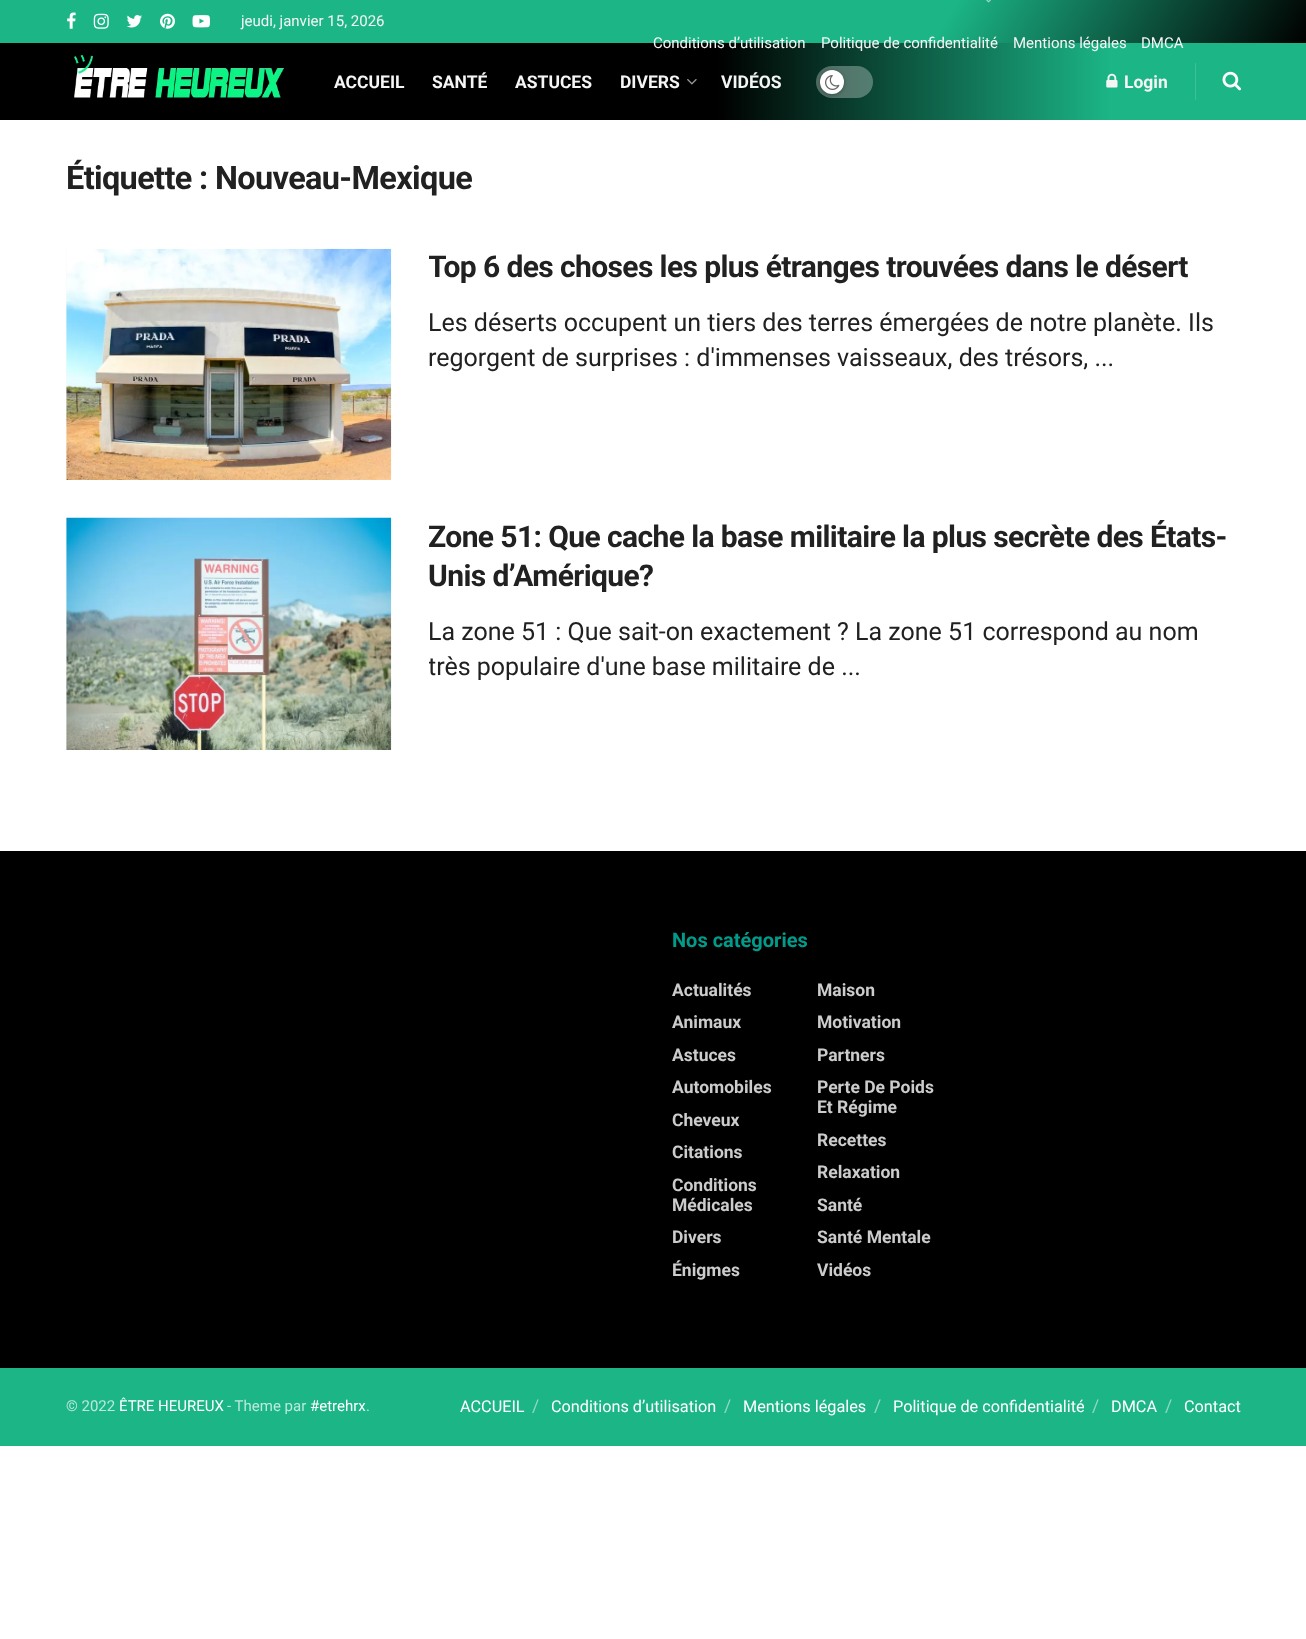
<!DOCTYPE html>
<meta charset="utf-8">
<style>body { margin: 0 } canvas { display: block }</style>
<canvas id="canvas" width="1306" height="1639"></canvas>
<img id="img1" src="images/1.png" hidden>
<img id="img2" src="images/2.png" hidden>
<img id="img3" src="images/3.png" hidden>
<img id="img4" src="images/4.png" hidden>
<img id="img5" src="images/5.png" hidden>
<img id="img6" src="images/6.png" hidden>
<img id="img7" src="images/7.png" hidden>
<img id="img8" src="images/8.png" hidden>
<img id="img9" src="images/9.png" hidden>
<img id="img10" src="images/10.png" hidden>
<img id="img11" src="images/11.png" hidden>
<img id="img12" src="images/12.png" hidden>
<img id="img13" src="images/13.png" hidden>
<script>
window.onload = function () {
    const canvas = document.getElementById('canvas');
    const context = canvas.getContext('2d');
    context.miterLimit = 4;
    context.fontKerning = 'normal';
    let gradient;

    context.fillStyle = 'rgb(255, 255, 255)';
    context.fillRect(0, 0, 1306, 1639);
    gradient = context.createLinearGradient(154, -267, 1152, 309);
    gradient.addColorStop(0.72, 'rgb(27, 181, 134)');
    gradient.addColorStop(1, 'rgb(0, 0, 0)');
    context.fillStyle = gradient;
    context.fillRect(0, 0, 1306, 43);
    context.drawImage(document.getElementById('img1'), 67, 12, 9, 17);
    context.drawImage(document.getElementById('img2'), 93, 13, 16, 16);
    context.drawImage(document.getElementById('img3'), 126, 15, 16, 13);
    context.drawImage(document.getElementById('img4'), 160, 13, 15, 16);
    context.drawImage(document.getElementById('img5'), 192, 15, 18, 13);
    context.drawImage(document.getElementById('img6'), 986, 0, 5, 3);
    gradient = context.createLinearGradient(0, 81, 1306, 81);
    gradient.addColorStop(0.55, 'rgb(0, 0, 0)');
    gradient.addColorStop(0.85, 'rgb(27, 181, 134)');
    context.fillStyle = gradient;
    context.fillRect(0, 43, 1306, 77);
    context.drawImage(document.getElementById('img7'), 74, 55, 210, 43);
    context.drawImage(document.getElementById('img8'), 687, 79, 10, 6);
    context.fillStyle = 'rgba(255, 255, 255, 0.3)';
    context.beginPath();
    context.roundRect(816, 66, 57, 32, 16);
    context.fill();
    context.fillStyle = 'rgba(0, 0, 0, 0.3)';
    context.filter = 'blur(2px)';
    context.beginPath();
    context.roundRect(820, 71, 24, 24, 12);
    context.fill();
    context.filter = 'none';
    context.fillStyle = 'rgb(255, 255, 255)';
    context.beginPath();
    context.arc(832, 82, 12, 0, 2 * Math.PI);
    context.fill();
    context.drawImage(document.getElementById('img9'), 825, 75, 15, 15);
    context.drawImage(document.getElementById('img10'), 1106, 73, 12, 15);
    context.fillStyle = 'rgb(61, 192, 152)';
    context.fillRect(1195, 63, 1, 37);
    context.drawImage(document.getElementById('img11'), 1222, 71, 19, 20);
    context.fillStyle = 'rgb(247, 247, 247)';
    context.fillRect(66, 249, 1, 231);
    context.drawImage(document.getElementById('img12'), 66, 248, 326, 232);
    context.fillRect(66, 518, 1, 232);
    context.drawImage(document.getElementById('img13'), 66, 517, 326, 233);
    context.fillStyle = 'rgb(0, 0, 0)';
    context.fillRect(0, 851, 1306, 517);
    context.fillStyle = 'rgb(27, 181, 134)';
    context.fillRect(0, 1368, 1306, 78);
    context.font = '15px Roboto';
    context.fillStyle = 'rgb(245, 245, 245)';
    context.fillText('jeudi, janvier 15, 2026', 241, 26);
    context.fillText('Conditions d’utilisation', 653, 48);
    context.fillText('Politique de confidentialité', 821, 48);
    context.fillText('Mentions légales', 1013, 48);
    context.fillText('DMCA', 1141, 48);
    context.font = 'bold 17.5px Roboto';
    context.fillText('ACCUEIL', 334, 88);
    context.fillText('SANTÉ', 432, 88);
    context.fillText('ASTUCES', 515, 88);
    context.fillText('DIVERS', 620, 88);
    context.fillText('VIDÉOS', 721, 88);
    context.fillText('Login', 1124, 88);
    context.letterSpacing = '-0.65px';
    context.font = 'bold 32.5px Roboto';
    context.fillStyle = 'rgb(33, 33, 33)';
    context.fillText('Étiquette : Nouveau-Mexique', 66, 189);
    context.save();
    context.beginPath();
    context.rect(429, 249, 812, 126);
    context.clip();
    context.letterSpacing = '-0.6px';
    context.font = 'bold 30px Roboto';
    context.fillText('Top 6 des choses les plus étranges trouvées dans le désert', 428, 277);
    context.restore();
    context.letterSpacing = '0px';
    context.font = '25px Roboto';
    context.fillText('Les déserts occupent un tiers des terres émergées de notre planète. Ils', 428, 331);
    context.fillText('regorgent de surprises : d\'immenses vaisseaux, des trésors, ...', 428, 366);
    context.letterSpacing = '-0.6px';
    context.font = 'bold 30px Roboto';
    context.fillText('Zone 51: Que cache la base militaire la plus secrète des États-', 428, 547);
    context.fillText('Unis d’Amérique?', 428, 586);
    context.letterSpacing = '0px';
    context.font = '25px Roboto';
    context.fillText('La zone 51 : Que sait-on exactement ? La zone 51 correspond au nom', 428, 640);
    context.save();
    context.beginPath();
    context.rect(429, 518, 812, 166);
    context.clip();
    context.fillText('très populaire d\'une base militaire de ...', 428, 675);
    context.restore();
    context.font = 'bold 20px Roboto';
    context.fillStyle = 'rgb(0, 155, 139)';
    context.fillText('Nos catégories', 672, 947);
    context.font = 'bold 17.5px Roboto';
    context.fillStyle = 'rgb(204, 204, 204)';
    context.fillText('Actualités', 672, 996);
    context.fillText('Maison', 817, 996);
    context.fillText('Animaux', 672, 1028);
    context.fillText('Motivation', 817, 1028);
    context.fillText('Astuces', 672, 1061);
    context.fillText('Partners', 817, 1061);
    context.fillText('Automobiles', 672, 1093);
    context.fillText('Perte De Poids', 817, 1093);
    context.fillText('Et Régime', 817, 1113);
    context.fillText('Cheveux', 672, 1126);
    context.fillText('Recettes', 817, 1146);
    context.fillText('Citations', 672, 1158);
    context.fillText('Relaxation', 817, 1178);
    context.fillText('Conditions', 672, 1191);
    context.fillText('Médicales', 672, 1211);
    context.fillText('Santé', 817, 1211);
    context.fillText('Divers', 672, 1243);
    context.fillText('Santé Mentale', 817, 1243);
    context.fillText('Énigmes', 672, 1276);
    context.fillText('Vidéos', 817, 1276);
    context.font = '15px Roboto';
    context.fillStyle = 'rgb(187, 233, 219)';
    context.fillText('© 2022', 66, 1411);
    context.fillStyle = 'rgb(255, 255, 255)';
    context.fillText('ÊTRE HEUREUX', 119, 1411);
    context.fillStyle = 'rgb(187, 233, 219)';
    context.fillText('- Theme par', 227, 1411);
    context.fillStyle = 'rgb(255, 255, 255)';
    context.fillText('#etrehrx', 310, 1411);
    context.fillStyle = 'rgb(187, 233, 219)';
    context.fillText('.', 366, 1411);
    context.font = '16.25px Roboto';
    context.fillStyle = 'rgb(255, 255, 255)';
    context.fillText('ACCUEIL', 460, 1412);
    context.font = '17.5px Roboto';
    context.fillStyle = 'rgb(141, 218, 195)';
    context.fillText('/', 532, 1412);
    context.font = '16.25px Roboto';
    context.fillStyle = 'rgb(255, 255, 255)';
    context.fillText('Conditions d’utilisation', 551, 1412);
    context.font = '17.5px Roboto';
    context.fillStyle = 'rgb(141, 218, 195)';
    context.fillText('/', 724, 1412);
    context.font = '16.25px Roboto';
    context.fillStyle = 'rgb(255, 255, 255)';
    context.fillText('Mentions légales', 743, 1412);
    context.font = '17.5px Roboto';
    context.fillStyle = 'rgb(141, 218, 195)';
    context.fillText('/', 874, 1412);
    context.font = '16.25px Roboto';
    context.fillStyle = 'rgb(255, 255, 255)';
    context.fillText('Politique de confidentialité', 893, 1412);
    context.font = '17.5px Roboto';
    context.fillStyle = 'rgb(141, 218, 195)';
    context.fillText('/', 1092, 1412);
    context.font = '16.25px Roboto';
    context.fillStyle = 'rgb(255, 255, 255)';
    context.fillText('DMCA', 1111, 1412);
    context.font = '17.5px Roboto';
    context.fillStyle = 'rgb(141, 218, 195)';
    context.fillText('/', 1165, 1412);
    context.font = '16.25px Roboto';
    context.fillStyle = 'rgb(255, 255, 255)';
    context.fillText('Contact', 1184, 1412);
};
</script>
